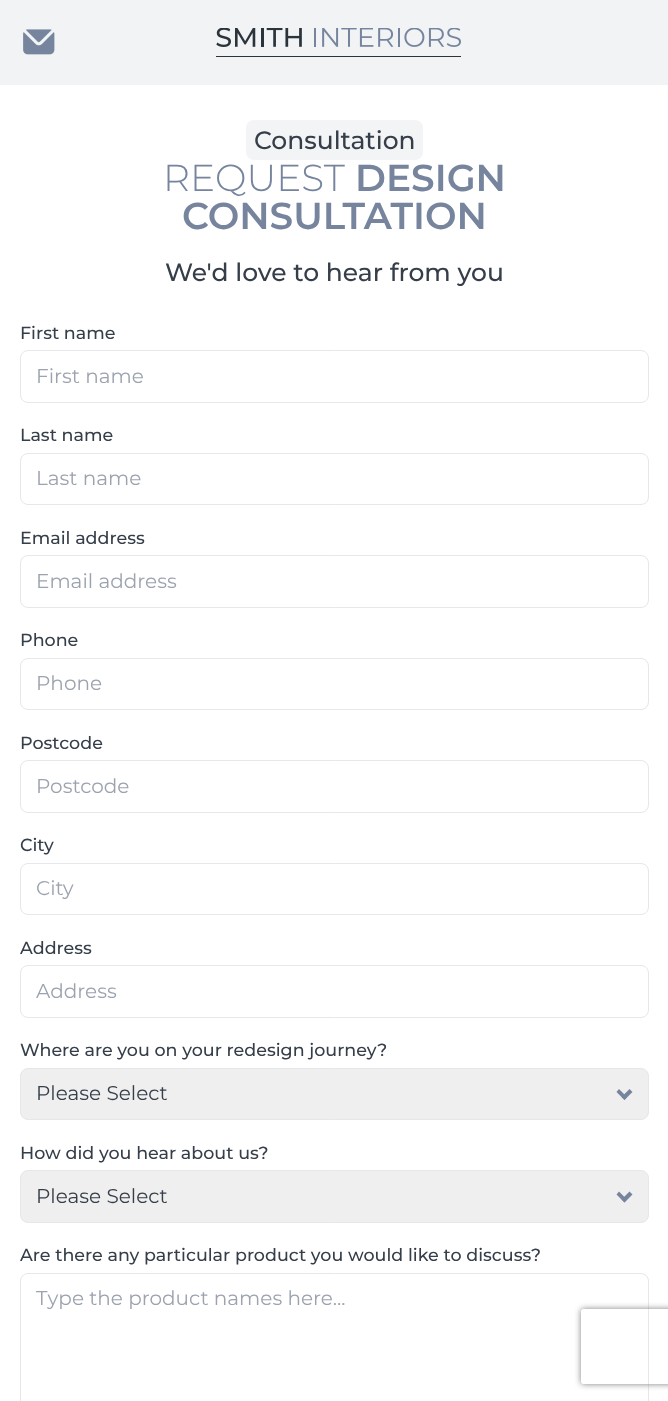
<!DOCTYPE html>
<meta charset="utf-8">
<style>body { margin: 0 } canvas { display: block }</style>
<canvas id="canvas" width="668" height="1401"></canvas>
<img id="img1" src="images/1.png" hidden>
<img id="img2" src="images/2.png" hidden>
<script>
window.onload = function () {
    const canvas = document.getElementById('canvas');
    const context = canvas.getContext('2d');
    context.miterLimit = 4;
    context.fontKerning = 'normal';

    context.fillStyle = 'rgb(255, 255, 255)';
    context.fillRect(0, 0, 668, 1401);
    context.fillStyle = 'rgb(241, 243, 245)';
    context.fillRect(0, 0, 668, 85);
    context.drawImage(document.getElementById('img1'), 23, 29, 32, 26);
    context.drawImage(document.getElementById('img2'), 216, 28, 245, 29);
    context.fillStyle = 'rgb(243, 244, 246)';
    context.beginPath();
    context.roundRect(246, 120, 177, 40, 8);
    context.fill();
    context.beginPath();
    context.roundRect(20.5, 350.5, 628, 52, 7.5);
    context.strokeStyle = 'rgb(229, 231, 235)';
    context.stroke();
    context.beginPath();
    context.roundRect(20.5, 453.5, 628, 51, 7.5);
    context.stroke();
    context.beginPath();
    context.roundRect(20.5, 555.5, 628, 52, 7.5);
    context.stroke();
    context.beginPath();
    context.roundRect(20.5, 658.5, 628, 51, 7.5);
    context.stroke();
    context.beginPath();
    context.roundRect(20.5, 760.5, 628, 52, 7.5);
    context.stroke();
    context.beginPath();
    context.roundRect(20.5, 863.5, 628, 51, 7.5);
    context.stroke();
    context.beginPath();
    context.roundRect(20.5, 965.5, 628, 52, 7.5);
    context.stroke();
    context.fillStyle = 'rgb(239, 239, 239)';
    context.beginPath();
    context.roundRect(20.5, 1068.5, 628, 51, 7.5);
    context.fill();
    context.stroke();
    context.fillStyle = 'rgb(118, 133, 157)';
    context.beginPath();
    context.moveTo(629.5, 1089);
    context.lineTo(632.5, 1092);
    context.lineTo(624.5, 1100);
    context.lineTo(621.5, 1097);
    context.closePath();
    context.fill();
    context.beginPath();
    context.moveTo(619, 1089);
    context.lineTo(627, 1097);
    context.lineTo(624.5, 1100);
    context.lineTo(616.5, 1092);
    context.closePath();
    context.fill();
    context.fillStyle = 'rgb(239, 239, 239)';
    context.beginPath();
    context.roundRect(20.5, 1170.5, 628, 52, 7.5);
    context.fill();
    context.stroke();
    context.fillStyle = 'rgb(118, 133, 157)';
    context.beginPath();
    context.moveTo(629.5, 1191.5);
    context.lineTo(632.5, 1194.5);
    context.lineTo(624.5, 1202.5);
    context.lineTo(621.5, 1199.5);
    context.closePath();
    context.fill();
    context.beginPath();
    context.moveTo(619, 1191.5);
    context.lineTo(627, 1199.5);
    context.lineTo(624.5, 1202.5);
    context.lineTo(616.5, 1194.5);
    context.closePath();
    context.fill();
    context.beginPath();
    context.roundRect(20.5, 1273.5, 628, 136, 7.5);
    context.stroke();
    context.save();
    context.beginPath();
    context.moveTo(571, 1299);
    context.lineTo(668, 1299);
    context.lineTo(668, 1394);
    context.lineTo(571, 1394);
    context.closePath();
    context.moveTo(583.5, 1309);
    context.lineTo(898.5, 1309);
    context.bezierCurveTo(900, 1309, 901, 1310, 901, 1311.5);
    context.lineTo(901, 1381.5);
    context.bezierCurveTo(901, 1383, 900, 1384, 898.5, 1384);
    context.lineTo(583.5, 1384);
    context.bezierCurveTo(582, 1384, 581, 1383, 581, 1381.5);
    context.lineTo(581, 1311.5);
    context.bezierCurveTo(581, 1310, 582, 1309, 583.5, 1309);
    context.closePath();
    context.clip('evenodd');
    context.fillStyle = 'rgb(128, 128, 128)';
    context.filter = 'blur(3px)';
    context.beginPath();
    context.roundRect(581, 1309, 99, 75, 2.5);
    context.fill();
    context.filter = 'none';
    context.restore();
    context.font = '500 25px Montserrat';
    context.fillStyle = 'rgb(53, 62, 73)';
    context.fillText('Consultation', 254, 149);
    context.font = '300 37.5px Montserrat';
    context.fillStyle = 'rgb(118, 133, 157)';
    context.fillText('REQUEST', 163, 191);
    context.font = '600 37.5px Montserrat';
    context.fillText('DESIGN', 355, 191);
    context.fillText('CONSULTATION', 182, 229);
    context.font = '500 25px Montserrat';
    context.fillStyle = 'rgb(53, 62, 73)';
    context.fillText('We\'d love to hear from you', 165, 281);
    context.font = '500 17.5px Montserrat';
    context.fillText('First name', 20, 339);
    context.font = '20px Montserrat';
    context.fillStyle = 'rgb(156, 163, 175)';
    context.fillText('First name', 36, 383);
    context.font = '500 17.5px Montserrat';
    context.fillStyle = 'rgb(53, 62, 73)';
    context.fillText('Last name', 20, 441);
    context.font = '20px Montserrat';
    context.fillStyle = 'rgb(156, 163, 175)';
    context.fillText('Last name', 36, 485);
    context.font = '500 17.5px Montserrat';
    context.fillStyle = 'rgb(53, 62, 73)';
    context.fillText('Email address', 20, 544);
    context.font = '20px Montserrat';
    context.fillStyle = 'rgb(156, 163, 175)';
    context.fillText('Email address', 36, 588);
    context.font = '500 17.5px Montserrat';
    context.fillStyle = 'rgb(53, 62, 73)';
    context.fillText('Phone', 20, 646);
    context.font = '20px Montserrat';
    context.fillStyle = 'rgb(156, 163, 175)';
    context.fillText('Phone', 36, 690);
    context.font = '500 17.5px Montserrat';
    context.fillStyle = 'rgb(53, 62, 73)';
    context.fillText('Postcode', 20, 749);
    context.font = '20px Montserrat';
    context.fillStyle = 'rgb(156, 163, 175)';
    context.fillText('Postcode', 36, 793);
    context.font = '500 17.5px Montserrat';
    context.fillStyle = 'rgb(53, 62, 73)';
    context.fillText('City', 20, 851);
    context.font = '20px Montserrat';
    context.fillStyle = 'rgb(156, 163, 175)';
    context.fillText('City', 36, 895);
    context.font = '500 17.5px Montserrat';
    context.fillStyle = 'rgb(53, 62, 73)';
    context.fillText('Address', 20, 954);
    context.font = '20px Montserrat';
    context.fillStyle = 'rgb(156, 163, 175)';
    context.fillText('Address', 36, 998);
    context.font = '500 17.5px Montserrat';
    context.fillStyle = 'rgb(53, 62, 73)';
    context.fillText('Where are you on your redesign journey?', 20, 1056);
    context.font = '20px Montserrat';
    context.fillText('Please Select', 36, 1100);
    context.font = '500 17.5px Montserrat';
    context.fillText('How did you hear about us?', 20, 1159);
    context.font = '20px Montserrat';
    context.fillText('Please Select', 36, 1203);
    context.font = '500 17.5px Montserrat';
    context.fillText('Are there any particular product you would like to discuss?', 20, 1261);
    context.font = '20px Montserrat';
    context.fillStyle = 'rgb(156, 163, 175)';
    context.fillText('Type the product names here...', 36, 1305);
};
</script>
